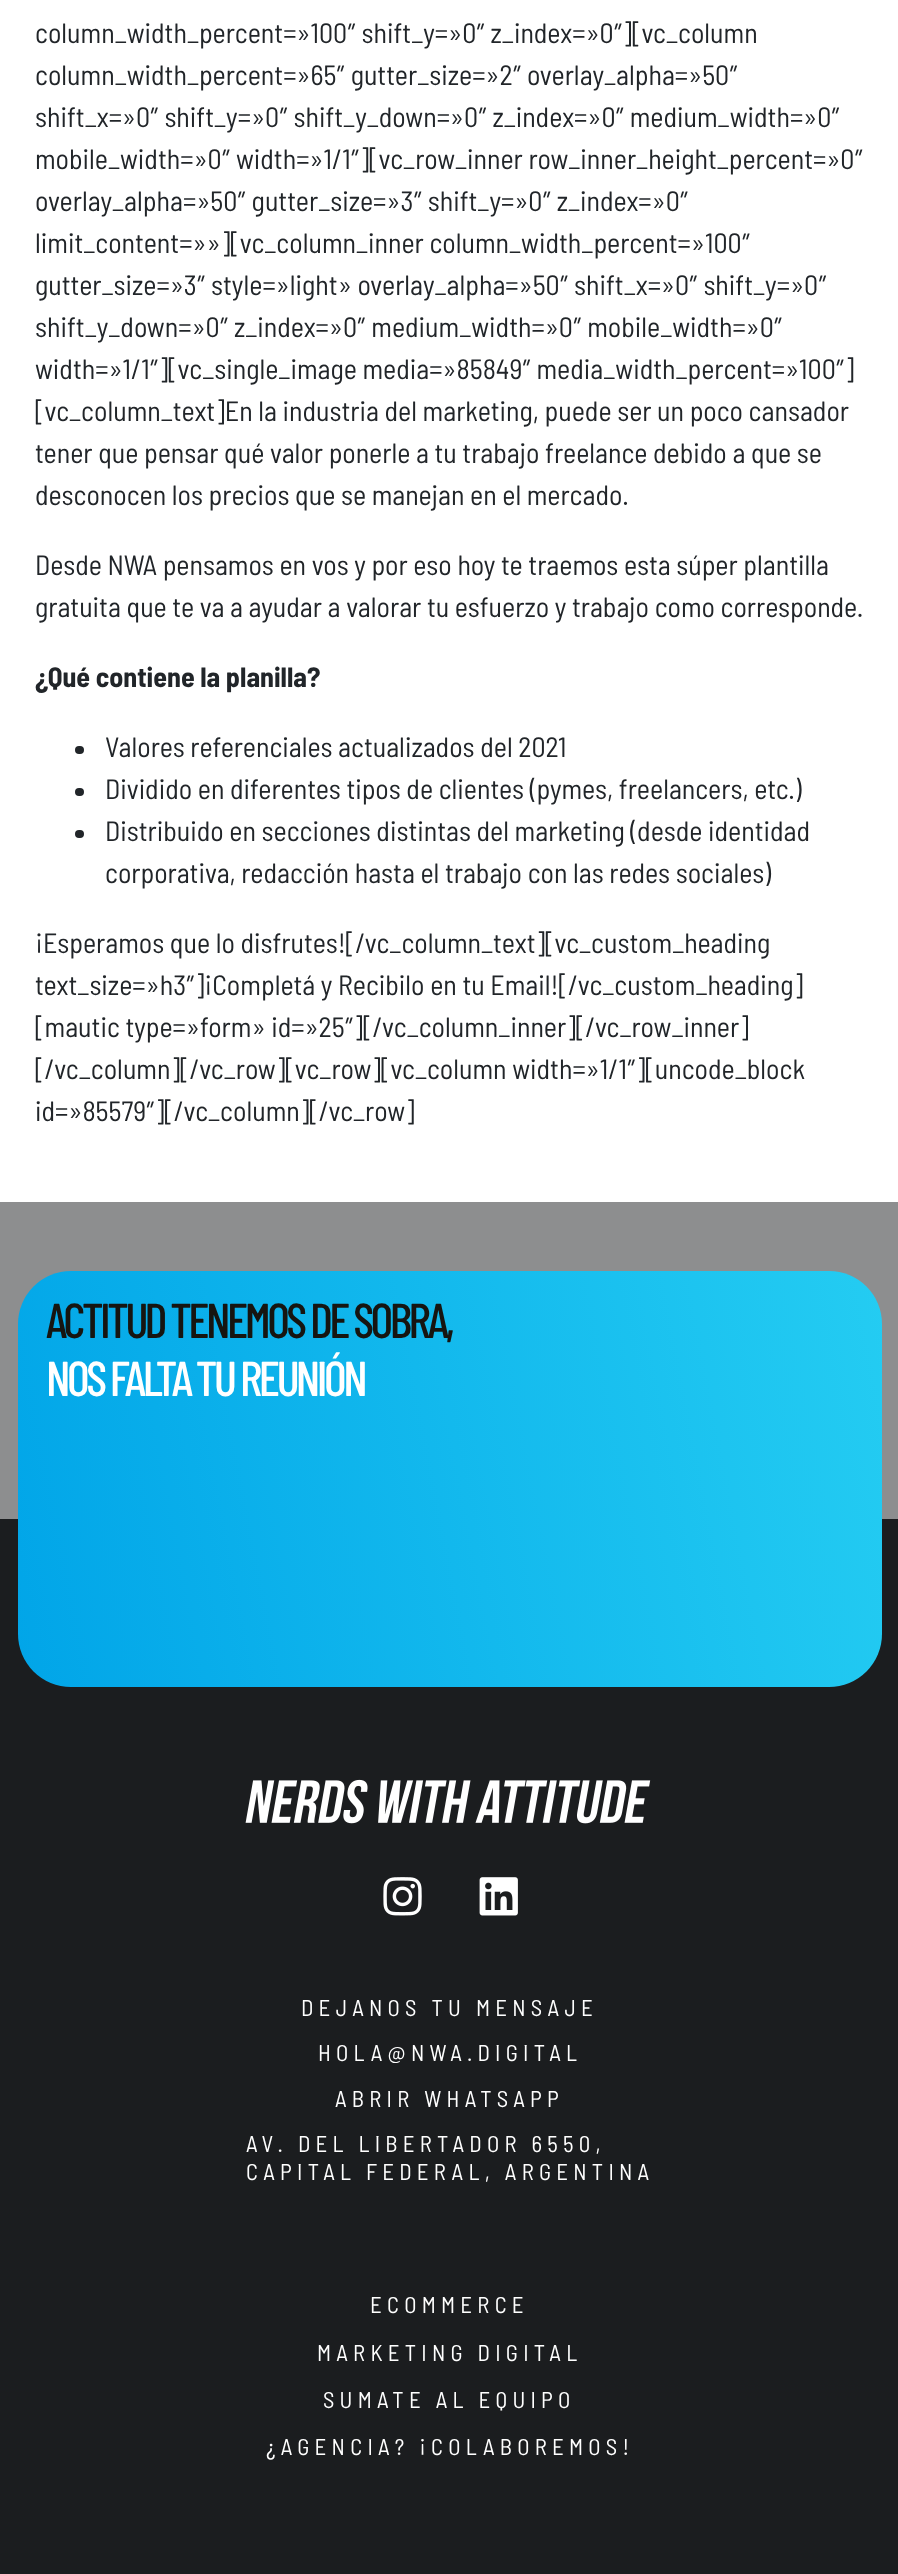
<!DOCTYPE html>
<meta charset="utf-8">
<style>body { margin: 0 } canvas { display: block }</style>
<canvas id="canvas" width="898" height="2574"></canvas>
<img id="img1" src="images/1.png" hidden>
<img id="img2" src="images/2.png" hidden>
<img id="img3" src="images/3.png" hidden>
<script>
window.onload = function () {
    const canvas = document.getElementById('canvas');
    const context = canvas.getContext('2d');
    context.miterLimit = 4;
    context.fontKerning = 'normal';
    let gradient;

    context.fillStyle = 'rgb(27, 29, 31)';
    context.fillRect(0, 0, 898, 2574);
    context.fillStyle = 'rgb(255, 255, 255)';
    context.fillRect(0, 0, 898, 1202);
    context.fillStyle = 'rgb(33, 37, 41)';
    context.beginPath();
    context.roundRect(75, 746, 9, 8, 4);
    context.fill();
    context.beginPath();
    context.roundRect(75, 788, 9, 8, 4);
    context.fill();
    context.beginPath();
    context.roundRect(75, 830, 9, 8, 4);
    context.fill();
    context.fillStyle = 'rgb(141, 142, 143)';
    context.fillRect(0, 1202, 898, 317);
    gradient = context.createLinearGradient(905, 1390, -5.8, 1567);
    gradient.addColorStop(0, 'rgb(36, 204, 242)');
    gradient.addColorStop(1, 'rgb(1, 165, 232)');
    context.fillStyle = gradient;
    context.beginPath();
    context.roundRect(18, 1271, 864, 416, 53);
    context.fill();
    context.drawImage(document.getElementById('img1'), 245, 1779, 406, 45);
    context.drawImage(document.getElementById('img2'), 383, 1877, 39, 39);
    context.drawImage(document.getElementById('img3'), 479, 1877, 39, 39);
    context.font = '28px Barlow Semi Condensed';
    context.fillStyle = 'rgb(33, 37, 41)';
    context.fillText('column_width_percent=»100″ shift_y=»0″ z_index=»0″][vc_column', 35, 43);
    context.fillText('column_width_percent=»65″ gutter_size=»2″ overlay_alpha=»50″', 35, 85);
    context.fillText('shift_x=»0″ shift_y=»0″ shift_y_down=»0″ z_index=»0″ medium_width=»0″', 35, 127);
    context.fillText('mobile_width=»0″ width=»1/1″][vc_row_inner row_inner_height_percent=»0″', 35, 169);
    context.fillText('overlay_alpha=»50″ gutter_size=»3″ shift_y=»0″ z_index=»0″', 35, 211);
    context.fillText('limit_content=»»][vc_column_inner column_width_percent=»100″', 35, 253);
    context.fillText('gutter_size=»3″ style=»light» overlay_alpha=»50″ shift_x=»0″ shift_y=»0″', 35, 295);
    context.fillText('shift_y_down=»0″ z_index=»0″ medium_width=»0″ mobile_width=»0″', 35, 337);
    context.fillText('width=»1/1″][vc_single_image media=»85849″ media_width_percent=»100″]', 35, 379);
    context.fillText('[vc_column_text]En la industria del marketing, puede ser un poco cansador', 35, 421);
    context.fillText('tener que pensar qué valor ponerle a tu trabajo freelance debido a que se', 35, 463);
    context.fillText('desconocen los precios que se manejan en el mercado.', 35, 505);
    context.fillText('Desde NWA pensamos en vos y por eso hoy te traemos esta súper plantilla', 35, 575);
    context.fillText('gratuita que te va a ayudar a valorar tu esfuerzo y trabajo como corresponde.', 35, 617);
    context.font = 'bold 28px Barlow Semi Condensed';
    context.fillText('¿Qué contiene la planilla?', 35, 687);
    context.font = '28px Barlow Semi Condensed';
    context.fillText('Valores referenciales actualizados del 2021', 105, 757);
    context.fillText('Dividido en diferentes tipos de clientes (pymes, freelancers, etc.)', 105, 799);
    context.fillText('Distribuido en secciones distintas del marketing (desde identidad', 105, 841);
    context.fillText('corporativa, redacción hasta el trabajo con las redes sociales)', 105, 883);
    context.fillText('¡Esperamos que lo disfrutes![/vc_column_text][vc_custom_heading', 35, 953);
    context.fillText('text_size=»h3″]¡Completá y Recibilo en tu Email![/vc_custom_heading]', 35, 995);
    context.fillText('[mautic type=»form» id=»25″][/vc_column_inner][/vc_row_inner]', 35, 1037);
    context.fillText('[/vc_column][/vc_row][vc_row][vc_column width=»1/1″][uncode_block', 35, 1079);
    context.fillText('id=»85579″][/vc_column][/vc_row]', 35, 1121);
    context.letterSpacing = '-3.5px';
    context.font = '500 49px Barlow Condensed';
    context.fillStyle = 'rgb(22, 21, 17)';
    context.fillText('ACTITUD TENEMOS DE SOBRA,', 46, 1338);
    context.fillStyle = 'rgb(255, 255, 255)';
    context.fillText('NOS FALTA TU REUNIÓN', 46, 1396);
    context.letterSpacing = '5.25px';
    context.font = '22.75px Barlow Semi Condensed';
    context.fillText('DEJANOS TU MENSAJE', 301, 2016);
    context.fillText('HOLA@NWA.DIGITAL', 318, 2061);
    context.fillText('ABRIR WHATSAPP', 335, 2107);
    context.fillText('AV. DEL LIBERTADOR 6550,', 246, 2152);
    context.fillText('CAPITAL FEDERAL, ARGENTINA', 246, 2180);
    context.fillText('ECOMMERCE', 370, 2313);
    context.fillText('MARKETING DIGITAL', 317, 2361);
    context.fillText('SUMATE AL EQUIPO', 323, 2408);
    context.fillText('¿AGENCIA? ¡COLABOREMOS!', 266, 2455);
};
</script>
